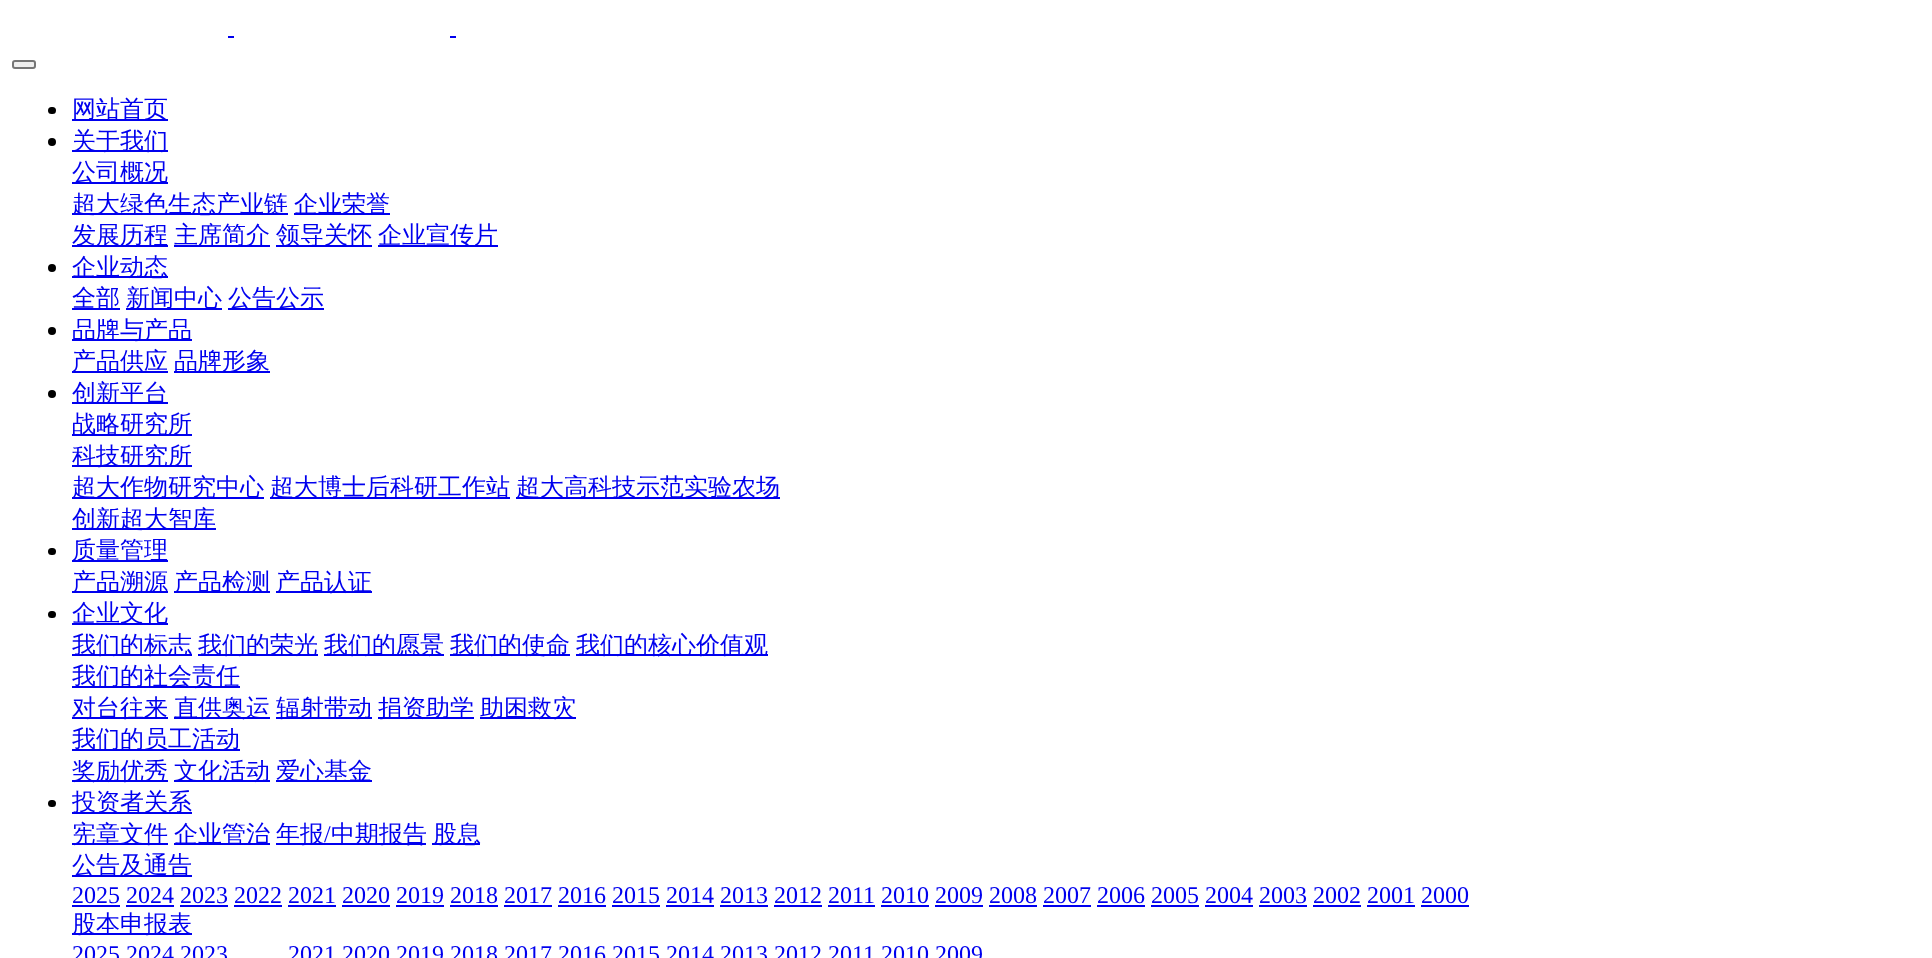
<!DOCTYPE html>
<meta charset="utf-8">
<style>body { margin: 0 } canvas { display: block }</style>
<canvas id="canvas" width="1932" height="958"></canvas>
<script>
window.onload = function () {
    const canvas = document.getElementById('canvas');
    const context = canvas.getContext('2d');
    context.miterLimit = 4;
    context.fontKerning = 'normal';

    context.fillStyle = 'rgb(255, 255, 255)';
    context.fillRect(0, 0, 1932, 958);
    context.fillStyle = 'rgb(0, 0, 238)';
    context.fillRect(228, 36, 6, 2);
    context.fillRect(450, 36, 6, 2);
    context.fillStyle = 'rgb(239, 239, 239)';
    context.beginPath();
    context.roundRect(13, 61, 22, 7, 2);
    context.fill();
    context.strokeStyle = 'rgb(118, 118, 118)';
    context.lineWidth = 2;
    context.stroke();
    context.fillStyle = 'rgb(0, 0, 0)';
    context.beginPath();
    context.roundRect(48, 107, 8, 7, 3.5);
    context.fill();
    context.fillStyle = 'rgb(0, 0, 238)';
    context.fillRect(72, 119, 96, 2);
    context.fillStyle = 'rgb(0, 0, 0)';
    context.beginPath();
    context.arc(52, 142, 4, 0, 2 * Math.PI);
    context.fill();
    context.fillStyle = 'rgb(0, 0, 238)';
    context.fillRect(72, 150, 96, 2);
    context.fillRect(72, 182, 96, 2);
    context.fillRect(72, 213, 216, 2);
    context.fillRect(294, 213, 96, 2);
    context.fillRect(72, 245, 96, 2);
    context.fillRect(174, 245, 96, 2);
    context.fillRect(276, 245, 96, 2);
    context.fillRect(378, 245, 120, 2);
    context.fillStyle = 'rgb(0, 0, 0)';
    context.beginPath();
    context.arc(52, 268, 4, 0, 2 * Math.PI);
    context.fill();
    context.fillStyle = 'rgb(0, 0, 238)';
    context.fillRect(72, 276, 96, 2);
    context.fillRect(72, 308, 48, 2);
    context.fillRect(126, 308, 96, 2);
    context.fillRect(228, 308, 96, 2);
    context.fillStyle = 'rgb(0, 0, 0)';
    context.beginPath();
    context.arc(52, 331, 4, 0, 2 * Math.PI);
    context.fill();
    context.fillStyle = 'rgb(0, 0, 238)';
    context.fillRect(72, 339, 120, 2);
    context.fillRect(72, 371, 96, 2);
    context.fillRect(174, 371, 96, 2);
    context.fillStyle = 'rgb(0, 0, 0)';
    context.beginPath();
    context.arc(52, 394, 4, 0, 2 * Math.PI);
    context.fill();
    context.fillStyle = 'rgb(0, 0, 238)';
    context.fillRect(72, 402, 96, 2);
    context.fillRect(72, 434, 120, 2);
    context.fillRect(72, 465, 120, 2);
    context.fillRect(72, 497, 192, 2);
    context.fillRect(270, 497, 240, 2);
    context.fillRect(516, 497, 264, 2);
    context.fillRect(72, 528, 144, 2);
    context.fillStyle = 'rgb(0, 0, 0)';
    context.beginPath();
    context.roundRect(48, 548, 8, 7, 3.5);
    context.fill();
    context.fillStyle = 'rgb(0, 0, 238)';
    context.fillRect(72, 560, 96, 2);
    context.fillRect(72, 591, 96, 2);
    context.fillRect(174, 591, 96, 2);
    context.fillRect(276, 591, 96, 2);
    context.fillStyle = 'rgb(0, 0, 0)';
    context.beginPath();
    context.roundRect(48, 611, 8, 7, 3.5);
    context.fill();
    context.fillStyle = 'rgb(0, 0, 238)';
    context.fillRect(72, 623, 96, 2);
    context.fillRect(72, 654, 120, 2);
    context.fillRect(198, 654, 120, 2);
    context.fillRect(324, 654, 120, 2);
    context.fillRect(450, 654, 120, 2);
    context.fillRect(576, 654, 192, 2);
    context.fillRect(72, 686, 168, 2);
    context.fillRect(72, 717, 96, 2);
    context.fillRect(174, 717, 96, 2);
    context.fillRect(276, 717, 96, 2);
    context.fillRect(378, 717, 96, 2);
    context.fillRect(480, 717, 96, 2);
    context.fillRect(72, 749, 168, 2);
    context.fillRect(72, 780, 96, 2);
    context.fillRect(174, 780, 96, 2);
    context.fillRect(276, 780, 96, 2);
    context.fillStyle = 'rgb(0, 0, 0)';
    context.beginPath();
    context.roundRect(48, 800, 8, 7, 3.5);
    context.fill();
    context.fillStyle = 'rgb(0, 0, 238)';
    context.fillRect(72, 812, 120, 2);
    context.fillRect(72, 843, 96, 2);
    context.fillRect(174, 843, 96, 2);
    context.fillRect(276, 843, 150, 2);
    context.fillRect(432, 843, 48, 2);
    context.fillRect(72, 875, 120, 2);
    context.fillRect(72, 905, 48, 2);
    context.fillRect(126, 905, 48, 2);
    context.fillRect(180, 905, 48, 2);
    context.fillRect(234, 905, 48, 2);
    context.fillRect(288, 905, 48, 2);
    context.fillRect(342, 905, 48, 2);
    context.fillRect(396, 905, 48, 2);
    context.fillRect(450, 905, 48, 2);
    context.fillRect(504, 905, 48, 2);
    context.fillRect(558, 905, 48, 2);
    context.fillRect(612, 905, 48, 2);
    context.fillRect(666, 905, 48, 2);
    context.fillRect(720, 905, 48, 2);
    context.fillRect(774, 905, 48, 2);
    context.fillRect(828, 905, 47, 2);
    context.fillRect(881, 905, 48, 2);
    context.fillRect(935, 905, 48, 2);
    context.fillRect(989, 905, 48, 2);
    context.fillRect(1043, 905, 48, 2);
    context.fillRect(1097, 905, 48, 2);
    context.fillRect(1151, 905, 48, 2);
    context.fillRect(1205, 905, 48, 2);
    context.fillRect(1259, 905, 48, 2);
    context.fillRect(1313, 905, 48, 2);
    context.fillRect(1367, 905, 48, 2);
    context.fillRect(1421, 905, 48, 2);
    context.fillRect(72, 933, 120, 2);
    context.font = '500 24px WenQuanYi Zen Hei';
    context.fillText('网站首页', 72, 117);
    context.fillText('关于我们', 72, 149);
    context.fillText('公司概况', 72, 180);
    context.fillText('超大绿色生态产业链', 72, 212);
    context.fillText('企业荣誉', 294, 212);
    context.fillText('发展历程', 72, 243);
    context.fillText('主席简介', 174, 243);
    context.fillText('领导关怀', 276, 243);
    context.fillText('企业宣传片', 378, 243);
    context.fillText('企业动态', 72, 275);
    context.fillText('全部', 72, 306);
    context.fillText('新闻中心', 126, 306);
    context.fillText('公告公示', 228, 306);
    context.fillText('品牌与产品', 72, 338);
    context.fillText('产品供应', 72, 369);
    context.fillText('品牌形象', 174, 369);
    context.fillText('创新平台', 72, 401);
    context.fillText('战略研究所', 72, 432);
    context.fillText('科技研究所', 72, 464);
    context.fillText('超大作物研究中心', 72, 495);
    context.fillText('超大博士后科研工作站', 270, 495);
    context.fillText('超大高科技示范实验农场', 516, 495);
    context.fillText('创新超大智库', 72, 527);
    context.fillText('质量管理', 72, 558);
    context.fillText('产品溯源', 72, 590);
    context.fillText('产品检测', 174, 590);
    context.fillText('产品认证', 276, 590);
    context.fillText('企业文化', 72, 621);
    context.fillText('我们的标志', 72, 653);
    context.fillText('我们的荣光', 198, 653);
    context.fillText('我们的愿景', 324, 653);
    context.fillText('我们的使命', 450, 653);
    context.fillText('我们的核心价值观', 576, 653);
    context.fillText('我们的社会责任', 72, 684);
    context.fillText('对台往来', 72, 716);
    context.fillText('直供奥运', 174, 716);
    context.fillText('辐射带动', 276, 716);
    context.fillText('捐资助学', 378, 716);
    context.fillText('助困救灾', 480, 716);
    context.fillText('我们的员工活动', 72, 747);
    context.fillText('奖励优秀', 72, 779);
    context.fillText('文化活动', 174, 779);
    context.fillText('爱心基金', 276, 779);
    context.fillText('投资者关系', 72, 810);
    context.fillText('宪章文件', 72, 842);
    context.fillText('企业管治', 174, 842);
    context.fillText('年报', 276, 842);
    context.font = '24px Liberation Serif';
    context.fillText('/', 324, 842);
    context.font = '500 24px WenQuanYi Zen Hei';
    context.fillText('中期报告', 331, 842);
    context.fillText('股息', 433, 842);
    context.fillText('公告及通告', 72, 873);
    context.font = '24px Liberation Serif';
    context.fillText('2025 2024 2023 2022 2021 2020 2019 2018 2017 2016 2015 2014 2013 2012 2011 2010 2009 2008 2007 2006 2005 2004 2003 2002 2001 2000', 72, 903);
    context.font = '500 24px WenQuanYi Zen Hei';
    context.fillText('股本申报表', 72, 932);
    context.font = '24px Liberation Serif';
    context.fillText('2025 2024 2023', 72, 962);
    context.fillText('2021 2020 2019 2018 2017 2016 2015 2014 2013 2012 2011 2010 2009', 288, 962);
};
</script>
